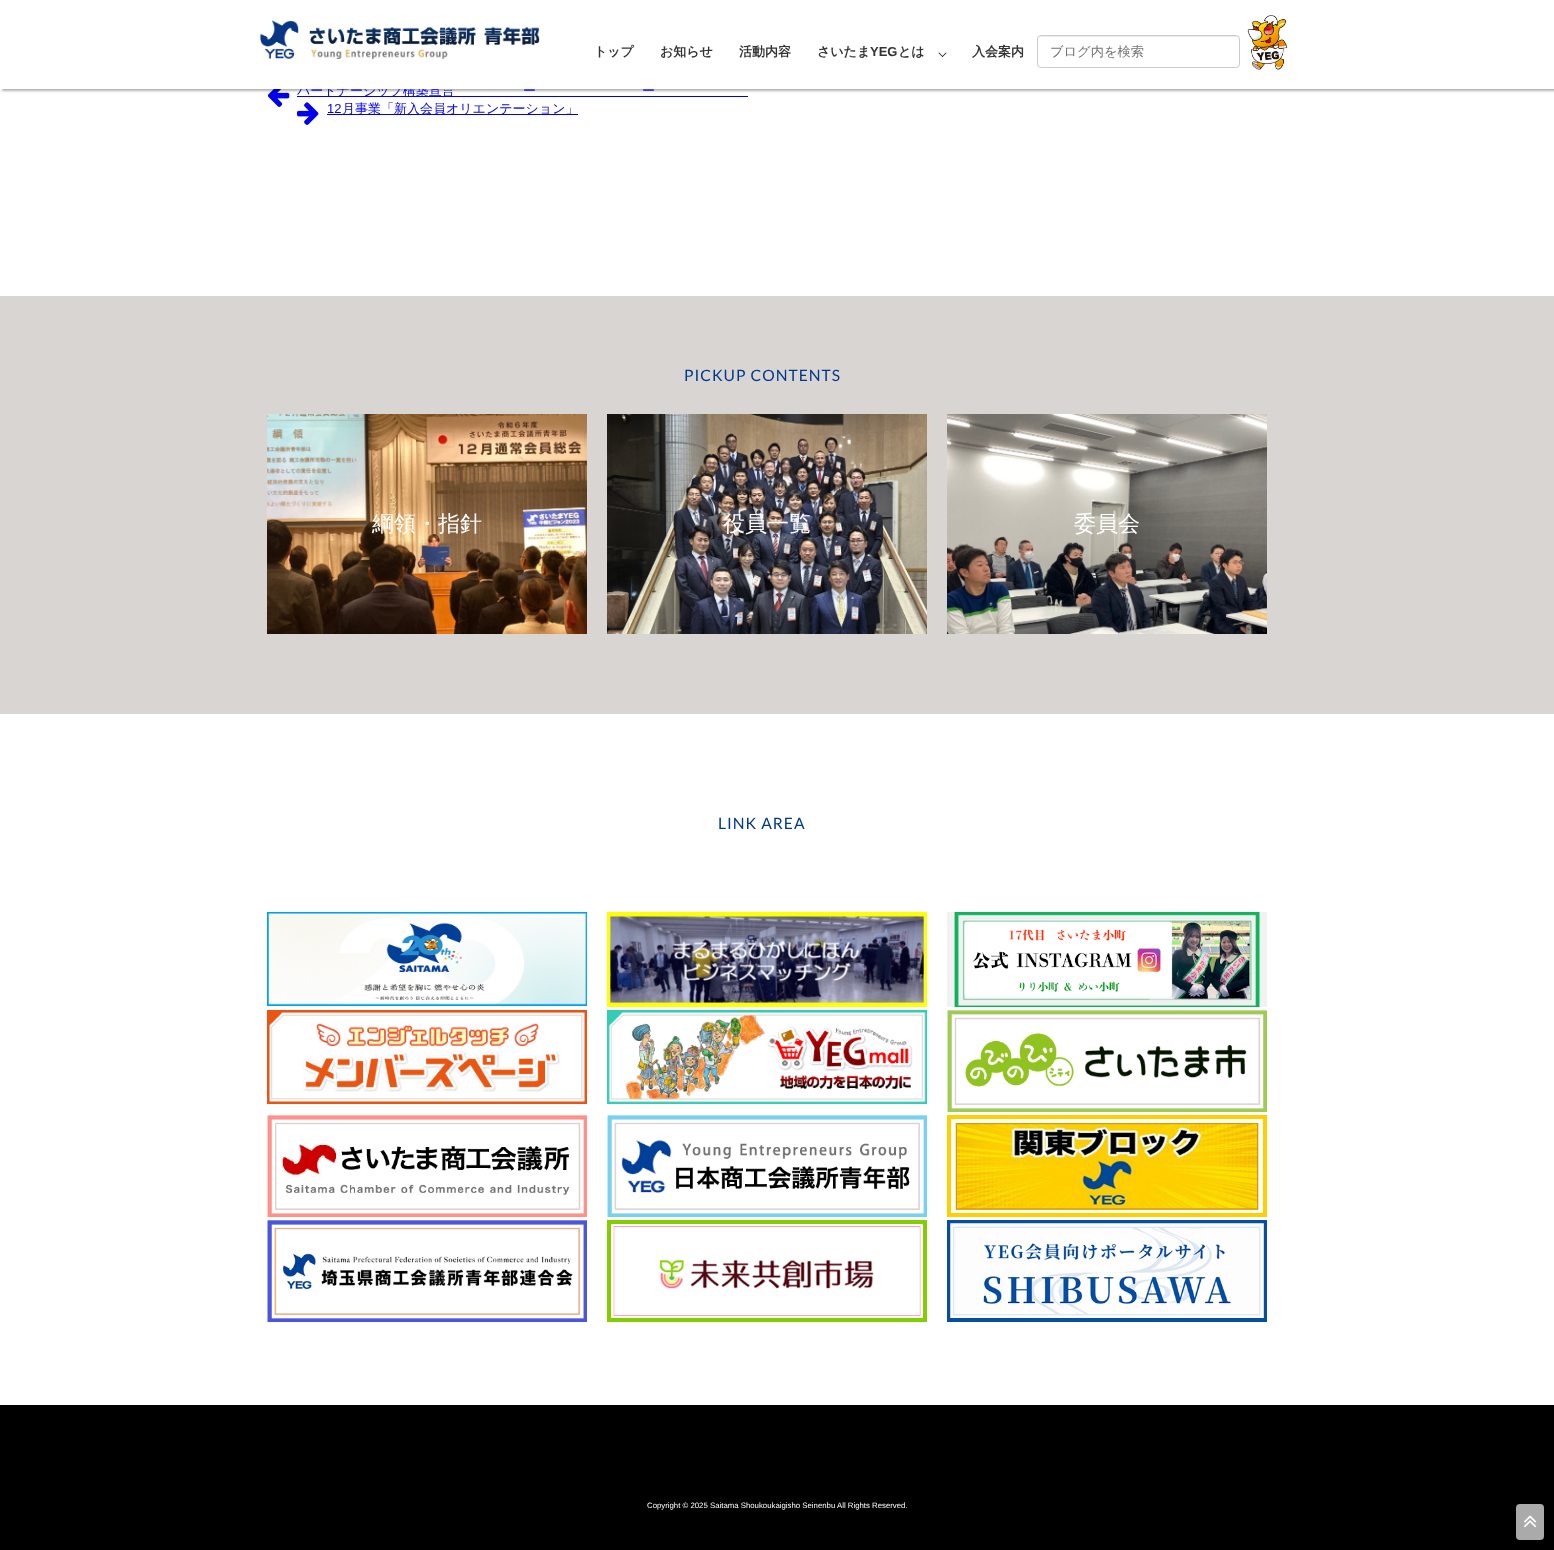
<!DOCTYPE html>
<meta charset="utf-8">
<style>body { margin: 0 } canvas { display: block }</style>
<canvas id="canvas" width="1554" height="1550"></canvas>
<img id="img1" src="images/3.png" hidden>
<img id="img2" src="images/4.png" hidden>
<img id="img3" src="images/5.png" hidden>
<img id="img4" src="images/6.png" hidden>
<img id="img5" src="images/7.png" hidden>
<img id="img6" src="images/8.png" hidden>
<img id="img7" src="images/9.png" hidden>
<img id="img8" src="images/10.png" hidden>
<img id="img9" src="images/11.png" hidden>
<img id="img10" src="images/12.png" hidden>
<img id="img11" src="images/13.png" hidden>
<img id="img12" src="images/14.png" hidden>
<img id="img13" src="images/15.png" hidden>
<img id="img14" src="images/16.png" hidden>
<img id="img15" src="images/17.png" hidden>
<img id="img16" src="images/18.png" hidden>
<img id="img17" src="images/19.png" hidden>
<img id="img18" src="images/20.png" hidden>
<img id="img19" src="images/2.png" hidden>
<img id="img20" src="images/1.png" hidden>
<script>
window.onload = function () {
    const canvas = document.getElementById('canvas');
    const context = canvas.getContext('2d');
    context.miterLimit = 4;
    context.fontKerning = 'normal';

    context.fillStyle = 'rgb(255, 255, 255)';
    context.fillRect(0, 0, 1554, 1550);
    context.drawImage(document.getElementById('img1'), 267, 89, 23, 18);
    context.fillStyle = 'rgba(0, 0, 0, 0.3)';
    context.filter = 'blur(1px)';
    context.beginPath();
    context.rect(2, 2, 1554, 89);
    context.fill();
    context.filter = 'none';
    context.fillStyle = 'rgb(0, 0, 238)';
    context.fillRect(297, 96, 451, 1);
    context.drawImage(document.getElementById('img2'), 297, 102, 22, 23);
    context.fillRect(327, 114, 251, 1);
    context.fillStyle = 'rgb(216, 213, 210)';
    context.fillRect(0, 296, 1554, 418);
    context.drawImage(document.getElementById('img3'), 267, 414, 320, 220);
    context.drawImage(document.getElementById('img4'), 607, 414, 320, 220);
    context.drawImage(document.getElementById('img5'), 947, 414, 320, 220);
    context.drawImage(document.getElementById('img6'), 267, 912, 320, 94);
    context.drawImage(document.getElementById('img7'), 607, 912, 320, 95);
    context.drawImage(document.getElementById('img8'), 947, 912, 320, 95);
    context.drawImage(document.getElementById('img9'), 267, 1010, 320, 94);
    context.drawImage(document.getElementById('img10'), 607, 1010, 320, 94);
    context.drawImage(document.getElementById('img11'), 947, 1010, 320, 102);
    context.drawImage(document.getElementById('img12'), 267, 1115, 320, 102);
    context.drawImage(document.getElementById('img13'), 607, 1115, 320, 102);
    context.drawImage(document.getElementById('img14'), 947, 1115, 320, 102);
    context.drawImage(document.getElementById('img15'), 267, 1220, 320, 102);
    context.drawImage(document.getElementById('img16'), 607, 1220, 320, 102);
    context.drawImage(document.getElementById('img17'), 947, 1220, 320, 102);
    context.fillStyle = 'rgb(0, 0, 0)';
    context.fillRect(0, 1405, 1554, 145);
    context.fillStyle = 'rgb(170, 170, 170)';
    context.beginPath();
    context.roundRect(1516, 1504, 28, 36, 4);
    context.fill();
    context.drawImage(document.getElementById('img18'), 1524, 1515, 13, 13);
    context.font = '500 13px WenQuanYi Zen Hei';
    context.fillStyle = 'rgb(0, 0, 238)';
    context.fillText('パートナーシップ構築宣言', 297, 95);
    context.fillStyle = 'rgb(255, 255, 255)';
    context.fillRect(0, 0, 1554, 89);
    context.fillStyle = 'rgb(0, 0, 0)';
    context.beginPath();
    context.moveTo(946, 52.5);
    context.lineTo(946.5, 53);
    context.lineTo(942.5, 57);
    context.lineTo(942, 56.5);
    context.closePath();
    context.fill();
    context.beginPath();
    context.moveTo(939, 52.5);
    context.lineTo(943, 56.5);
    context.lineTo(942.5, 57);
    context.lineTo(938.5, 53);
    context.closePath();
    context.fill();
    context.font = 'bold 13px WenQuanYi Zen Hei';
    context.fillStyle = 'rgb(51, 51, 51)';
    context.fillText('とは', 898, 56);
    context.font = 'bold 13px Liberation Sans';
    context.fillText('YEG', 870, 56);
    context.font = 'bold 13px WenQuanYi Zen Hei';
    context.fillText('さいたま', 817, 56);
    context.drawImage(document.getElementById('img19'), 1247, 15, 41, 55);
    context.fillStyle = 'rgb(236, 236, 236)';
    context.beginPath();
    context.moveTo(1041, 37);
    context.lineTo(1236, 37);
    context.bezierCurveTo(1238, 37, 1239, 38, 1239, 40);
    context.bezierCurveTo(1239, 38, 1238, 36, 1236, 36);
    context.lineTo(1041, 36);
    context.bezierCurveTo(1039, 36, 1038, 38, 1038, 40);
    context.bezierCurveTo(1038, 38, 1039, 37, 1041, 37);
    context.closePath();
    context.fill();
    context.beginPath();
    context.roundRect(1037.5, 35.5, 202, 32, 3.5);
    context.strokeStyle = 'rgb(204, 204, 204)';
    context.stroke();
    context.font = '500 13.25px WenQuanYi Zen Hei';
    context.fillStyle = 'rgb(117, 117, 117)';
    context.fillText('ブログ内を検索', 1050, 56);
    context.font = 'bold 13px WenQuanYi Zen Hei';
    context.fillStyle = 'rgb(51, 51, 51)';
    context.fillText('入会案内', 972, 56);
    context.fillText('活動内容', 739, 56);
    context.fillText('お知らせ', 660, 56);
    context.fillText('トップ', 594, 56);
    context.drawImage(document.getElementById('img20'), 260, 20, 280, 39);
    context.font = '500 13px WenQuanYi Zen Hei';
    context.fillStyle = 'rgb(0, 0, 238)';
    context.fillText('ー', 523, 95);
    context.fillText('ー', 642, 95);
    context.font = '13px Liberation Sans';
    context.fillText('12', 327, 113);
    context.font = '500 13px WenQuanYi Zen Hei';
    context.fillText('月事業「新入会員オリエンテーション」', 342, 113);
    context.letterSpacing = '1px';
    context.font = '15.6px Lato';
    context.fillStyle = 'rgb(0, 56, 140)';
    context.fillText('PICKUP CONTENTS', 684, 381);
    context.letterSpacing = '0px';
    context.font = '500 22px WenQuanYi Zen Hei';
    context.fillStyle = 'rgb(255, 255, 255)';
    context.fillText('綱領・指針', 372, 531);
    context.fillText('役員一覧', 723, 531);
    context.fillText('委員会', 1074, 531);
    context.letterSpacing = '1px';
    context.font = '15.6px Lato';
    context.fillStyle = 'rgb(0, 56, 140)';
    context.fillText('LINK AREA', 718, 829);
    context.letterSpacing = '0px';
    context.font = '7.8px Liberation Sans';
    context.fillStyle = 'rgb(255, 255, 255)';
    context.fillText('Copyright © 2025 Saitama Shoukoukaigisho Seinenbu All Rights Reserved.', 647, 1508);
};
</script>
